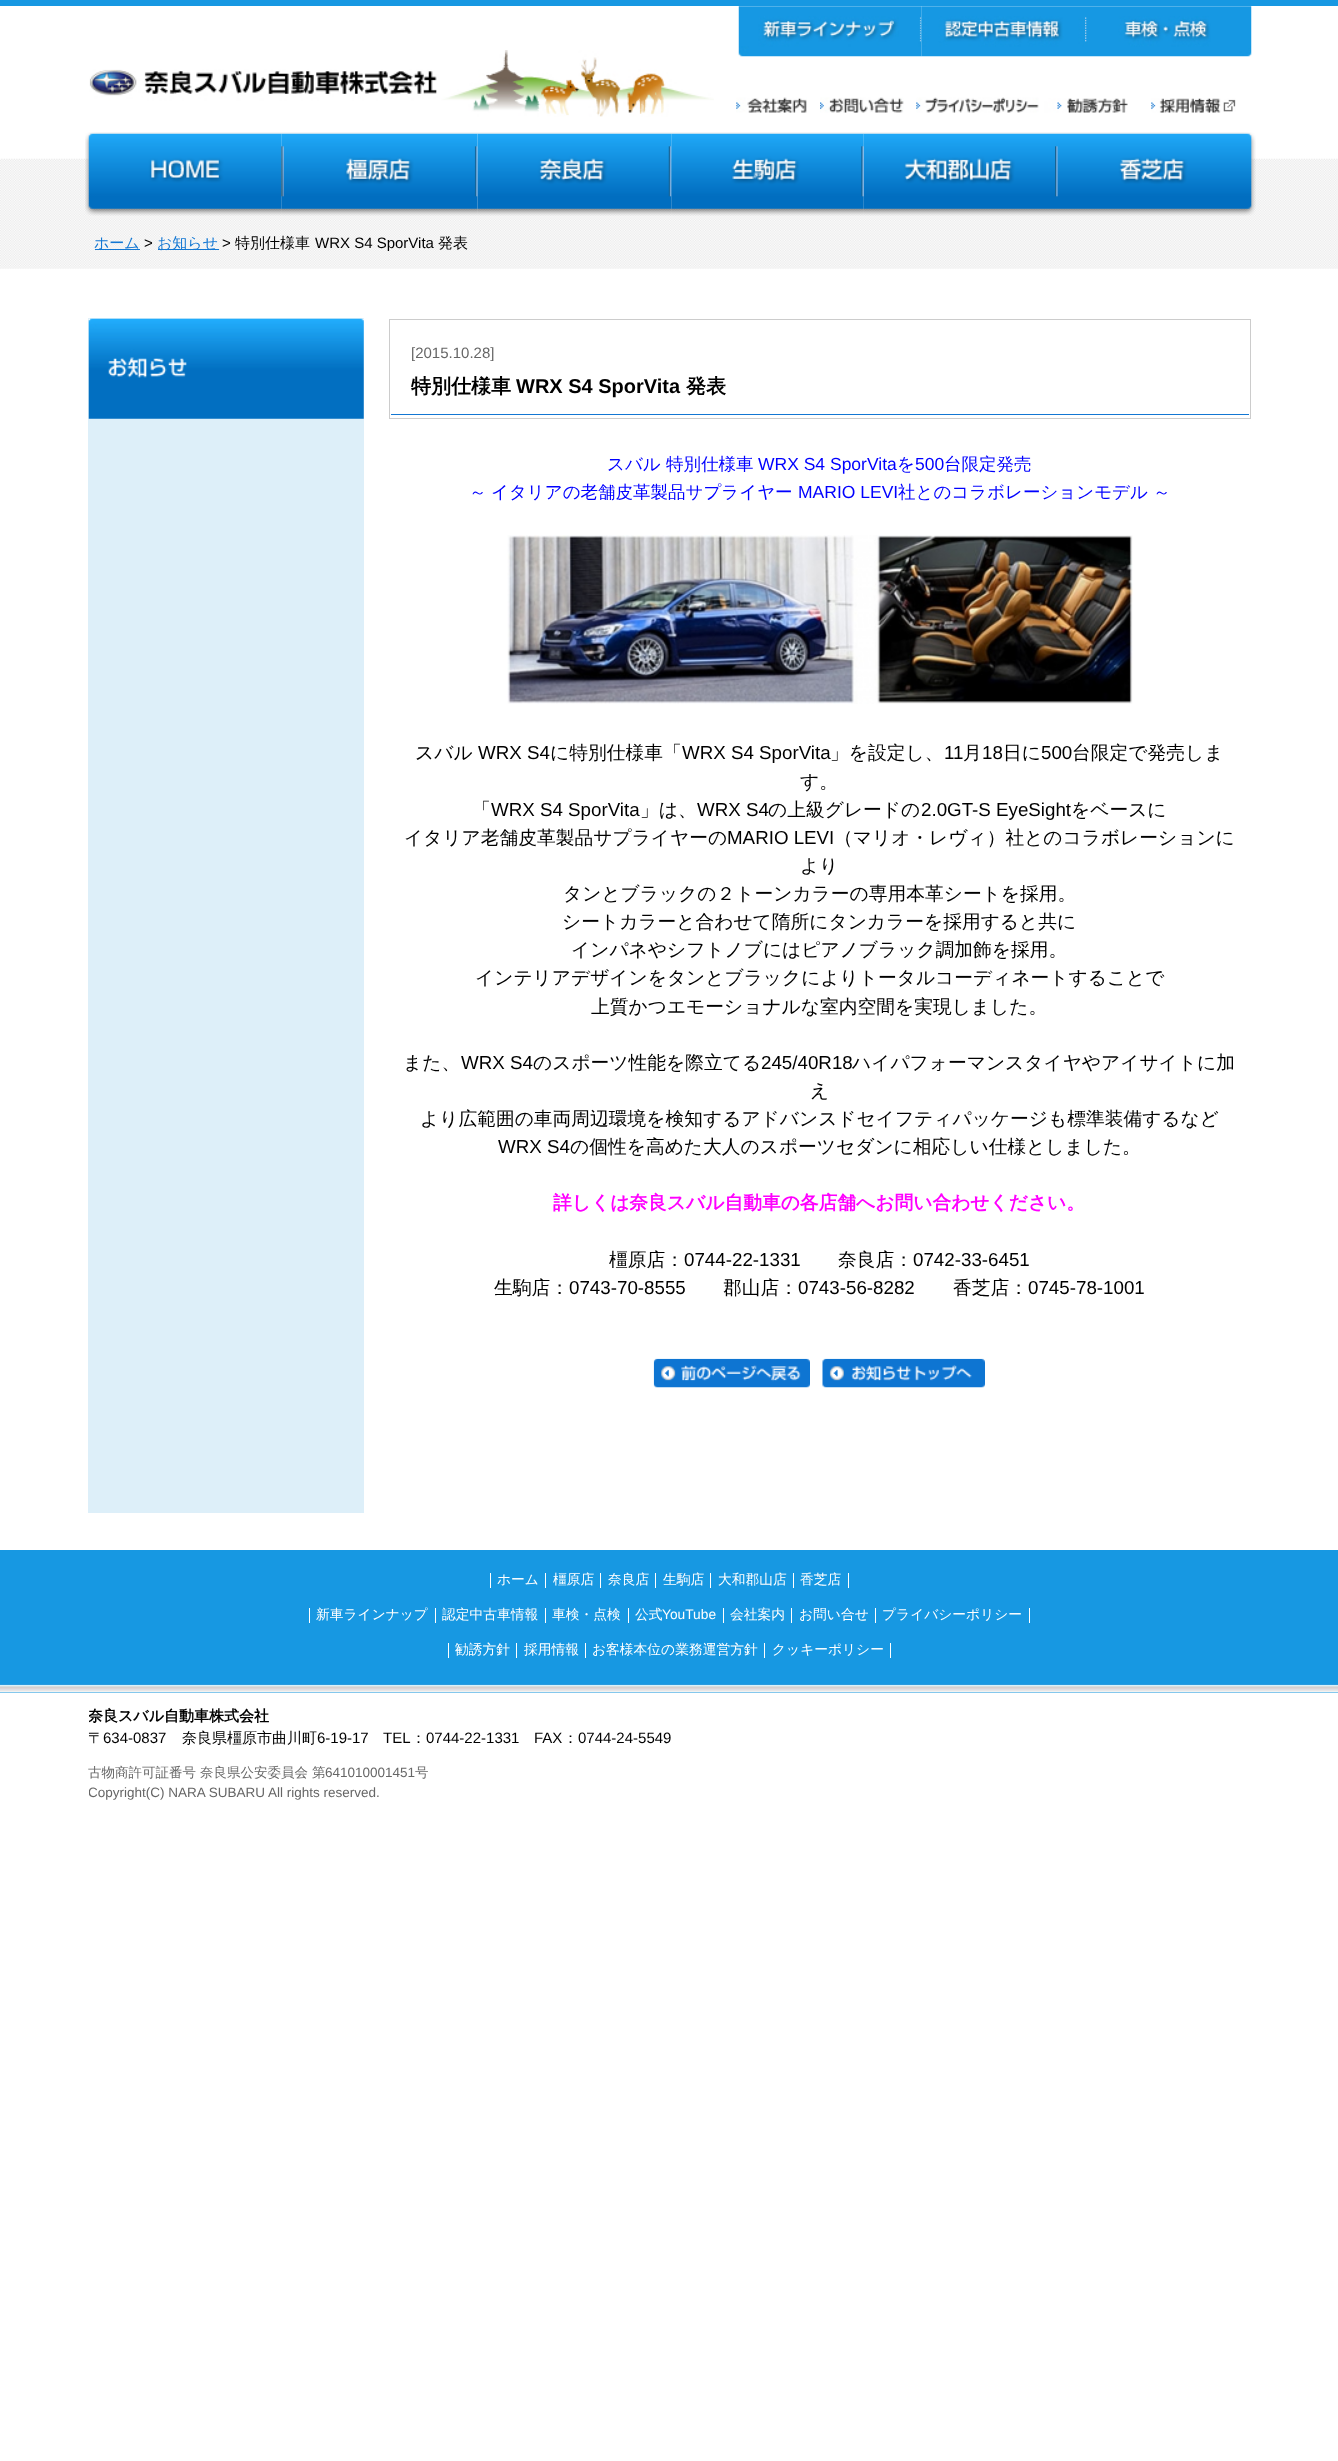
<!DOCTYPE html>
<meta charset="utf-8">
<style>body { margin: 0 } canvas { display: block }</style>
<canvas id="canvas" width="1338" height="2461"></canvas>
<img id="img1" src="images/1.png" hidden>
<img id="img2" src="images/2.png" hidden>
<img id="img3" src="images/3.png" hidden>
<img id="img4" src="images/4.png" hidden>
<img id="img5" src="images/5.png" hidden>
<img id="img6" src="images/6.png" hidden>
<img id="img7" src="images/7.png" hidden>
<img id="img8" src="images/8.png" hidden>
<img id="img9" src="images/9.png" hidden>
<img id="img10" src="images/10.png" hidden>
<img id="img11" src="images/11.png" hidden>
<img id="img12" src="images/12.png" hidden>
<img id="img13" src="images/13.png" hidden>
<img id="img14" src="images/14.png" hidden>
<img id="img15" src="images/15.png" hidden>
<img id="img16" src="images/16.png" hidden>
<img id="img17" src="images/17.png" hidden>
<img id="img18" src="images/18.png" hidden>
<img id="img19" src="images/19.png" hidden>
<img id="img20" src="images/20.png" hidden>
<img id="img21" src="images/21.png" hidden>
<script>
window.onload = function () {
    const canvas = document.getElementById('canvas');
    const context = canvas.getContext('2d');
    context.miterLimit = 4;
    context.fontKerning = 'normal';

    context.fillStyle = 'rgb(255, 255, 255)';
    context.fillRect(0, 0, 1338, 2461);
    context.fillStyle = 'rgb(23, 152, 226)';
    context.fillRect(0, 0, 1338, 6);
    context.drawImage(document.getElementById('img1'), 89, 50, 625, 67);
    context.drawImage(document.getElementById('img2'), 738, 6, 184, 51);
    context.drawImage(document.getElementById('img3'), 921, 6, 164, 51);
    context.drawImage(document.getElementById('img4'), 1085, 6, 167, 51);
    context.drawImage(document.getElementById('img5'), 736, 97, 71, 16);
    context.drawImage(document.getElementById('img6'), 820, 97, 84, 16);
    context.drawImage(document.getElementById('img7'), 916, 97, 123, 16);
    context.drawImage(document.getElementById('img8'), 1038, 98, 90, 15);
    context.drawImage(document.getElementById('img9'), 1151, 98, 85, 15);
    context.drawImage(document.getElementById('img10'), 0, 158, 1338, 111);
    context.drawImage(document.getElementById('img11'), 85, 132, 197, 84);
    context.drawImage(document.getElementById('img12'), 281, 132, 197, 84);
    context.drawImage(document.getElementById('img13'), 477, 132, 195, 84);
    context.drawImage(document.getElementById('img14'), 671, 132, 193, 84);
    context.drawImage(document.getElementById('img15'), 863, 132, 192, 84);
    context.drawImage(document.getElementById('img16'), 1055, 132, 201, 84);
    context.fillStyle = 'rgb(19, 119, 211)';
    context.fillRect(95, 249, 45, 1);
    context.fillRect(158, 249, 61, 1);
    context.fillStyle = 'rgb(221, 239, 249)';
    context.fillRect(88, 318, 276, 1195);
    context.drawImage(document.getElementById('img17'), 88, 318, 276, 101);
    context.strokeStyle = 'rgb(204, 204, 204)';
    context.strokeRect(389.5, 319.5, 861, 99);
    context.fillStyle = 'rgb(19, 119, 211)';
    context.fillRect(391, 414, 858, 1);
    context.drawImage(document.getElementById('img18'), 507, 535, 626, 169);
    context.drawImage(document.getElementById('img19'), 653, 1358, 157, 30);
    context.drawImage(document.getElementById('img20'), 822, 1358, 163, 30);
    context.fillStyle = 'rgb(23, 152, 226)';
    context.fillRect(0, 1550, 1338, 143);
    context.drawImage(document.getElementById('img21'), 0, 1684, 1338, 9);
    context.fillStyle = 'rgb(255, 255, 255)';
    context.fillRect(490, 1573, 1, 15);
    context.fillRect(545, 1573, 1, 15);
    context.fillRect(600, 1573, 1, 15);
    context.fillRect(655, 1573, 1, 15);
    context.fillRect(710, 1573, 1, 15);
    context.fillRect(848, 1573, 1, 15);
    context.fillRect(793, 1573, 1, 15);
    context.fillRect(309, 1608, 1, 15);
    context.fillRect(435, 1608, 1, 15);
    context.fillRect(545, 1608, 1, 15);
    context.fillRect(628, 1608, 1, 15);
    context.fillRect(723, 1608, 1, 15);
    context.fillRect(791, 1608, 1, 15);
    context.fillRect(1029, 1608, 1, 15);
    context.fillRect(875, 1608, 1, 15);
    context.fillRect(448, 1643, 1, 15);
    context.fillRect(516, 1643, 1, 15);
    context.fillRect(585, 1643, 1, 15);
    context.fillRect(890, 1643, 1, 15);
    context.fillRect(764, 1643, 1, 15);
    context.font = '500 15px WenQuanYi Zen Hei';
    context.fillStyle = 'rgb(19, 119, 211)';
    context.fillText('ホーム', 94, 248);
    context.font = '15px Liberation Sans';
    context.fillStyle = 'rgb(0, 0, 0)';
    context.fillText('>', 144, 248);
    context.font = '500 15px WenQuanYi Zen Hei';
    context.fillStyle = 'rgb(19, 119, 211)';
    context.fillText('お知らせ', 157, 248);
    context.font = '15px Liberation Sans';
    context.fillStyle = 'rgb(0, 0, 0)';
    context.fillText('>', 222, 248);
    context.font = '500 15px WenQuanYi Zen Hei';
    context.fillText('特別仕様車', 235, 248);
    context.font = '15px Liberation Sans';
    context.fillText('WRX S4 SporVita', 315, 248);
    context.font = '500 15px WenQuanYi Zen Hei';
    context.fillText('発表', 438, 248);
    context.font = '15px Liberation Sans';
    context.fillStyle = 'rgb(102, 102, 102)';
    context.fillText('[2015.10.28]', 411, 358);
    context.font = 'bold 20px WenQuanYi Zen Hei';
    context.fillStyle = 'rgb(0, 0, 0)';
    context.fillText('特別仕様車', 411, 393);
    context.font = 'bold 20px Liberation Sans';
    context.fillText('WRX S4 SporVita', 516, 393);
    context.font = 'bold 20px WenQuanYi Zen Hei';
    context.fillText('発表', 686, 393);
    context.font = '500 17.5px WenQuanYi Zen Hei';
    context.fillStyle = 'rgb(0, 0, 255)';
    context.fillText('スバル', 607, 470);
    context.fillText('特別仕様車', 666, 470);
    context.font = '17.5px Liberation Sans';
    context.fillText('WRX S4 SporVita', 758, 470);
    context.font = '500 17.5px WenQuanYi Zen Hei';
    context.fillText('を', 897, 470);
    context.font = '17.5px Liberation Sans';
    context.fillText('500', 915, 470);
    context.font = '500 17.5px WenQuanYi Zen Hei';
    context.fillText('台限定発売', 944, 470);
    context.fillText('～', 469, 498);
    context.fillText('イタリアの老舗皮革製品サプライヤー', 491, 498);
    context.font = '17.5px Liberation Sans';
    context.fillText('MARIO LEVI', 798, 498);
    context.font = '500 17.5px WenQuanYi Zen Hei';
    context.fillText('社とのコラボレーションモデル', 898, 498);
    context.fillText('～', 1153, 498);
    context.font = '500 18.75px WenQuanYi Zen Hei';
    context.fillStyle = 'rgb(0, 0, 0)';
    context.fillText('スバル', 415, 759);
    context.font = '18.75px Liberation Sans';
    context.fillText('WRX S4', 478, 759);
    context.font = '500 18.75px WenQuanYi Zen Hei';
    context.fillText('に特別仕様車「', 550, 759);
    context.font = '18.75px Liberation Sans';
    context.fillText('WRX S4 SporVita', 682, 759);
    context.font = '500 18.75px WenQuanYi Zen Hei';
    context.fillText('」を設定し、', 830, 759);
    context.font = '18.75px Liberation Sans';
    context.fillText('11', 944, 759);
    context.font = '500 18.75px WenQuanYi Zen Hei';
    context.fillText('月', 963, 759);
    context.font = '18.75px Liberation Sans';
    context.fillText('18', 982, 759);
    context.font = '500 18.75px WenQuanYi Zen Hei';
    context.fillText('日に', 1003, 759);
    context.font = '18.75px Liberation Sans';
    context.fillText('500', 1041, 759);
    context.font = '500 18.75px WenQuanYi Zen Hei';
    context.fillText('台限定で発売しま', 1072, 759);
    context.fillText('す。', 800, 788);
    context.fillText('「', 472, 816);
    context.font = '18.75px Liberation Sans';
    context.fillText('WRX S4 SporVita', 491, 816);
    context.font = '500 18.75px WenQuanYi Zen Hei';
    context.fillText('」は、', 640, 816);
    context.font = '18.75px Liberation Sans';
    context.fillText('WRX S4', 697, 816);
    context.font = '500 18.75px WenQuanYi Zen Hei';
    context.fillText('の上級グレードの', 768, 816);
    context.font = '18.75px Liberation Sans';
    context.fillText('2.0GT-S EyeSight', 921, 816);
    context.font = '500 18.75px WenQuanYi Zen Hei';
    context.fillText('をベースに', 1071, 816);
    context.fillText('イタリア老舗皮革製品サプライヤーの', 404, 844);
    context.font = '18.75px Liberation Sans';
    context.fillText('MARIO LEVI', 727, 844);
    context.font = '500 18.75px WenQuanYi Zen Hei';
    context.fillText('（マリオ・レヴィ）社とのコラボレーションに', 834, 844);
    context.fillText('より', 800, 872);
    context.fillText('タンとブラックの２トーンカラーの専用本革シートを採用。', 563, 900);
    context.fillText('シートカラーと合わせて隋所にタンカラーを採用すると共に', 562, 928);
    context.fillText('インパネやシフトノブにはピアノブラック調加飾を採用。', 571, 956);
    context.fillText('インテリアデザインをタンとブラックによりトータルコーディネートすることで', 475, 984);
    context.fillText('上質かつエモーショナルな室内空間を実現しました。', 591, 1013);
    context.fillText('また、', 403, 1069);
    context.font = '18.75px Liberation Sans';
    context.fillText('WRX S4', 461, 1069);
    context.font = '500 18.75px WenQuanYi Zen Hei';
    context.fillText('のスポーツ性能を際立てる', 533, 1069);
    context.font = '18.75px Liberation Sans';
    context.fillText('245/40R18', 761, 1069);
    context.font = '500 18.75px WenQuanYi Zen Hei';
    context.fillText('ハイパフォーマンスタイヤやアイサイトに加', 852, 1069);
    context.fillText('え', 810, 1097);
    context.fillText('より広範囲の車両周辺環境を検知するアドバンスドセイフティパッケージも標準装備するなど', 420, 1125);
    context.font = '18.75px Liberation Sans';
    context.fillText('WRX S4', 498, 1153);
    context.font = '500 18.75px WenQuanYi Zen Hei';
    context.fillText('の個性を高めた大人のスポーツセダンに相応しい仕様としました。', 570, 1153);
    context.font = 'bold 18.75px WenQuanYi Zen Hei';
    context.fillStyle = 'rgb(255, 0, 255)';
    context.fillText('詳しくは奈良スバル自動車の各店舗へお問い合わせください。', 553, 1209);
    context.font = '500 18.75px WenQuanYi Zen Hei';
    context.fillStyle = 'rgb(0, 0, 0)';
    context.fillText('橿原店：', 609, 1266);
    context.font = '18.75px Liberation Sans';
    context.fillText('0744-22-1331', 684, 1266);
    context.font = '500 18.75px WenQuanYi Zen Hei';
    context.fillText('奈良店：', 838, 1266);
    context.font = '18.75px Liberation Sans';
    context.fillText('0742-33-6451', 913, 1266);
    context.font = '500 18.75px WenQuanYi Zen Hei';
    context.fillText('生駒店：', 494, 1294);
    context.font = '18.75px Liberation Sans';
    context.fillText('0743-70-8555', 569, 1294);
    context.font = '500 18.75px WenQuanYi Zen Hei';
    context.fillText('郡山店：', 723, 1294);
    context.font = '18.75px Liberation Sans';
    context.fillText('0743-56-8282', 798, 1294);
    context.font = '500 18.75px WenQuanYi Zen Hei';
    context.fillText('香芝店：', 953, 1294);
    context.font = '18.75px Liberation Sans';
    context.fillText('0745-78-1001', 1028, 1294);
    context.font = '500 13.75px WenQuanYi Zen Hei';
    context.fillStyle = 'rgb(255, 255, 255)';
    context.fillText('ホーム', 497, 1584);
    context.fillText('橿原店', 553, 1584);
    context.fillText('奈良店', 608, 1584);
    context.fillText('生駒店', 663, 1584);
    context.fillText('大和郡山店', 718, 1584);
    context.fillText('香芝店', 800, 1584);
    context.fillText('新車ラインナップ', 316, 1619);
    context.fillText('認定中古車情報', 442, 1619);
    context.fillText('車検・点検', 552, 1619);
    context.fillText('公式', 635, 1619);
    context.font = '13.75px Liberation Sans';
    context.fillText('YouTube', 662, 1619);
    context.font = '500 13.75px WenQuanYi Zen Hei';
    context.fillText('会社案内', 730, 1619);
    context.fillText('お問い合せ', 799, 1619);
    context.fillText('プライバシーポリシー', 882, 1619);
    context.fillText('勧誘方針', 455, 1654);
    context.fillText('採用情報', 524, 1654);
    context.fillText('お客様本位の業務運営方針', 592, 1654);
    context.fillText('クッキーポリシー', 772, 1654);
    context.save();
    context.beginPath();
    context.rect(89, 1705, 1162, 116);
    context.clip();
    context.font = 'bold 15px WenQuanYi Zen Hei';
    context.fillStyle = 'rgb(0, 0, 0)';
    context.fillText('奈良スバル自動車株式会社', 88, 1721);
    context.restore();
    context.font = '500 15px WenQuanYi Zen Hei';
    context.fillStyle = 'rgb(0, 0, 0)';
    context.fillText('〒', 88, 1743);
    context.font = '15px Liberation Sans';
    context.fillText('634-0837', 103, 1743);
    context.font = '500 15px WenQuanYi Zen Hei';
    context.fillText('奈良県橿原市曲川町', 182, 1743);
    context.font = '15px Liberation Sans';
    context.fillText('6-19-17', 317, 1743);
    context.fillText('TEL', 383, 1743);
    context.font = '500 15px WenQuanYi Zen Hei';
    context.fillText('：', 411, 1743);
    context.font = '15px Liberation Sans';
    context.fillText('0744-22-1331', 426, 1743);
    context.fillText('FAX', 534, 1743);
    context.font = '500 15px WenQuanYi Zen Hei';
    context.fillText('：', 563, 1743);
    context.font = '15px Liberation Sans';
    context.fillText('0744-24-5549', 578, 1743);
    context.font = '500 13.5px WenQuanYi Zen Hei';
    context.fillStyle = 'rgb(102, 102, 102)';
    context.fillText('古物商許可証番号 奈良県公安委員会 第', 88, 1777);
    context.font = '13.5px Liberation Sans';
    context.fillText('641010001451', 325, 1777);
    context.font = '500 13.5px WenQuanYi Zen Hei';
    context.fillText('号', 415, 1777);
    context.save();
    context.beginPath();
    context.rect(89, 1705, 1162, 116);
    context.clip();
    context.font = '13.5px Liberation Sans';
    context.fillText('Copyright(C) NARA SUBARU All rights reserved.', 88, 1797);
    context.restore();
};
</script>
